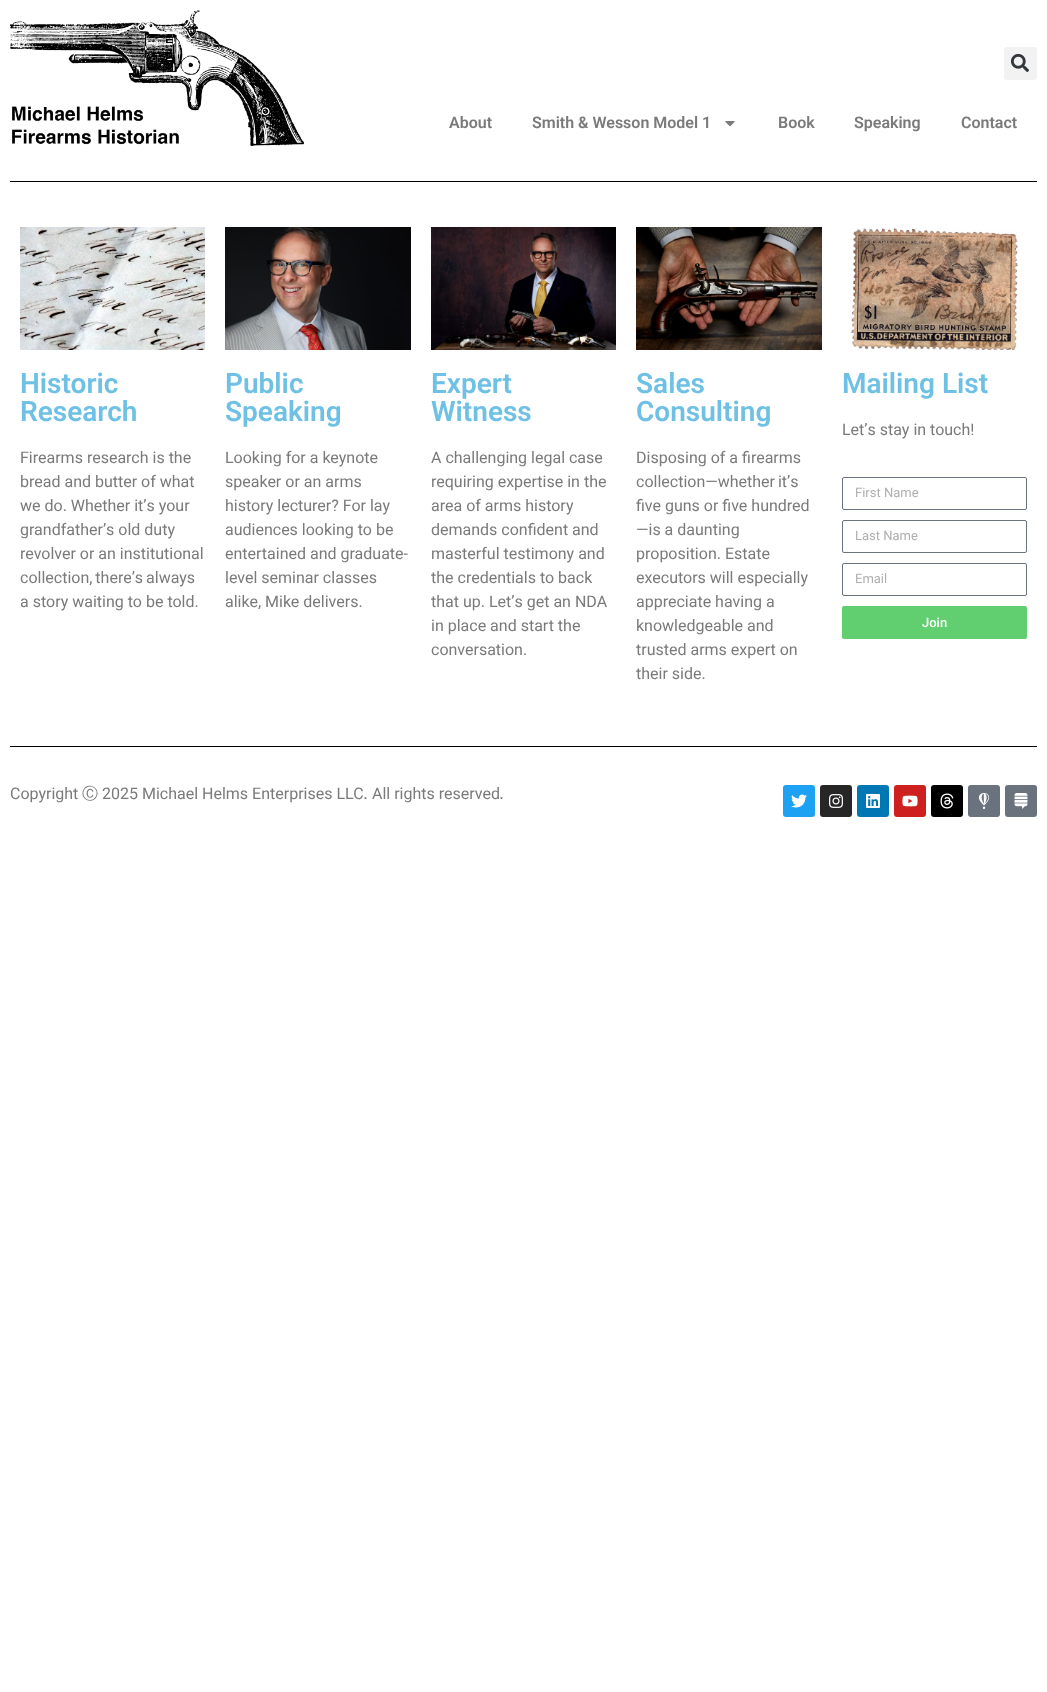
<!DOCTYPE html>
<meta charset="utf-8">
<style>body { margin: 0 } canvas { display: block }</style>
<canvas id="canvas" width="1047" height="1692"></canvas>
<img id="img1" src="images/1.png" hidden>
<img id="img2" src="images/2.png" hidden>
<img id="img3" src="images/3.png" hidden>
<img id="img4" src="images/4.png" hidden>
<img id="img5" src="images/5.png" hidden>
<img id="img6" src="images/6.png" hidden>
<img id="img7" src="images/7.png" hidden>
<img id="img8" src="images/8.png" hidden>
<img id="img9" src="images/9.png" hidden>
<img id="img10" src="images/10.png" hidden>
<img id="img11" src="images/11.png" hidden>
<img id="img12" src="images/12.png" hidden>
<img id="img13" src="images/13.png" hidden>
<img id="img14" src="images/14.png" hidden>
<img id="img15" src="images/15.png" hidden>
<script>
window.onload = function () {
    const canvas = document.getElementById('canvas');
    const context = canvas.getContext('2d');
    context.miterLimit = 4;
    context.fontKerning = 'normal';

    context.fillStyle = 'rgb(255, 255, 255)';
    context.fillRect(0, 0, 1047, 1692);
    context.drawImage(document.getElementById('img1'), 10, 10, 294, 136);
    context.fillStyle = 'rgb(242, 242, 242)';
    context.beginPath();
    context.roundRect(1004, 47, 33, 33, 3);
    context.fill();
    context.drawImage(document.getElementById('img2'), 1011, 54, 18, 18);
    context.drawImage(document.getElementById('img3'), 725, 121, 10, 6);
    context.fillStyle = 'rgb(0, 0, 0)';
    context.fillRect(10, 181, 1027, 1);
    context.drawImage(document.getElementById('img4'), 20, 227, 185, 123);
    context.drawImage(document.getElementById('img5'), 225, 227, 186, 123);
    context.drawImage(document.getElementById('img6'), 431, 227, 185, 123);
    context.drawImage(document.getElementById('img7'), 636, 227, 186, 123);
    context.drawImage(document.getElementById('img8'), 850, 228, 168, 122);
    context.beginPath();
    context.roundRect(842.5, 477.5, 184, 32, 1.5);
    context.strokeStyle = 'rgb(105, 114, 125)';
    context.stroke();
    context.beginPath();
    context.roundRect(842.5, 520.5, 184, 32, 1.5);
    context.stroke();
    context.beginPath();
    context.roundRect(842.5, 563.5, 184, 32, 1.5);
    context.stroke();
    context.fillStyle = 'rgb(97, 206, 112)';
    context.beginPath();
    context.roundRect(842, 606, 185, 33, 2);
    context.fill();
    context.fillStyle = 'rgb(0, 0, 0)';
    context.fillRect(10, 746, 1027, 1);
    context.fillStyle = 'rgb(29, 161, 242)';
    context.beginPath();
    context.roundRect(783, 785, 32, 32, 3);
    context.fill();
    context.drawImage(document.getElementById('img9'), 791, 794, 16, 14);
    context.fillStyle = 'rgb(38, 38, 38)';
    context.beginPath();
    context.roundRect(820, 785, 32, 32, 3);
    context.fill();
    context.drawImage(document.getElementById('img10'), 829, 794, 14, 14);
    context.fillStyle = 'rgb(0, 119, 181)';
    context.beginPath();
    context.roundRect(857, 785, 32, 32, 3);
    context.fill();
    context.drawImage(document.getElementById('img11'), 866, 794, 14, 14);
    context.fillStyle = 'rgb(205, 32, 31)';
    context.beginPath();
    context.roundRect(894, 785, 32, 32, 3);
    context.fill();
    context.drawImage(document.getElementById('img12'), 902, 795, 16, 12);
    context.fillStyle = 'rgb(0, 0, 0)';
    context.beginPath();
    context.roundRect(931, 785, 32, 32, 3);
    context.fill();
    context.drawImage(document.getElementById('img13'), 940, 793, 14, 16);
    context.fillStyle = 'rgb(105, 114, 125)';
    context.beginPath();
    context.roundRect(968, 785, 32, 32, 3);
    context.fill();
    context.drawImage(document.getElementById('img14'), 978, 793, 12, 16);
    context.beginPath();
    context.roundRect(1005, 785, 32, 32, 3);
    context.fill();
    context.drawImage(document.getElementById('img15'), 1014, 793, 14, 16);
    context.font = '600 16px Roboto';
    context.fillStyle = 'rgb(122, 122, 122)';
    context.fillText('About', 449, 128);
    context.fillText('Smith & Wesson Model 1', 532, 128);
    context.fillText('Book', 778, 128);
    context.fillText('Speaking', 854, 128);
    context.fillText('Contact', 961, 128);
    context.font = '600 28px Roboto';
    context.fillStyle = 'rgb(110, 193, 228)';
    context.fillText('Historic', 20, 393);
    context.fillText('Research', 20, 421);
    context.font = '16px Roboto';
    context.fillStyle = 'rgb(122, 122, 122)';
    context.fillText('Firearms research is the', 20, 463);
    context.fillText('bread and butter of what', 20, 487);
    context.fillText('we do. Whether it’s your', 20, 511);
    context.fillText('grandfather’s old duty', 20, 535);
    context.fillText('revolver or an institutional', 20, 559);
    context.wordSpacing = '-1px';
    context.fillText('collection, there’s always', 20, 583);
    context.wordSpacing = '0px';
    context.fillText('a story waiting to be told.', 20, 607);
    context.font = '600 28px Roboto';
    context.fillStyle = 'rgb(110, 193, 228)';
    context.fillText('Public', 225, 393);
    context.fillText('Speaking', 225, 421);
    context.font = '16px Roboto';
    context.fillStyle = 'rgb(122, 122, 122)';
    context.fillText('Looking for a keynote', 225, 463);
    context.fillText('speaker or an arms', 225, 487);
    context.fillText('history lecturer? For lay', 225, 511);
    context.fillText('audiences looking to be', 225, 535);
    context.fillText('entertained and graduate-', 225, 559);
    context.fillText('level seminar classes', 225, 583);
    context.fillText('alike, Mike delivers.', 225, 607);
    context.font = '600 28px Roboto';
    context.fillStyle = 'rgb(110, 193, 228)';
    context.fillText('Expert', 431, 393);
    context.fillText('Witness', 431, 421);
    context.font = '16px Roboto';
    context.fillStyle = 'rgb(122, 122, 122)';
    context.fillText('A challenging legal case', 431, 463);
    context.fillText('requiring expertise in the', 431, 487);
    context.fillText('area of arms history', 431, 511);
    context.fillText('demands confident and', 431, 535);
    context.fillText('masterful testimony and', 431, 559);
    context.fillText('the credentials to back', 431, 583);
    context.fillText('that up. Let’s get an NDA', 431, 607);
    context.fillText('in place and start the', 431, 631);
    context.fillText('conversation.', 431, 655);
    context.font = '600 28px Roboto';
    context.fillStyle = 'rgb(110, 193, 228)';
    context.fillText('Sales', 636, 393);
    context.fillText('Consulting', 636, 421);
    context.font = '16px Roboto';
    context.fillStyle = 'rgb(122, 122, 122)';
    context.fillText('Disposing of a firearms', 636, 463);
    context.wordSpacing = '-1px';
    context.fillText('collection—whether it’s', 636, 487);
    context.wordSpacing = '0px';
    context.fillText('five guns or five hundred', 636, 511);
    context.fillText('—is a daunting', 636, 535);
    context.fillText('proposition. Estate', 636, 559);
    context.fillText('executors will especially', 636, 583);
    context.fillText('appreciate having a', 636, 607);
    context.fillText('knowledgeable and', 636, 631);
    context.fillText('trusted arms expert on', 636, 655);
    context.fillText('their side.', 636, 679);
    context.font = '600 28px Roboto';
    context.fillStyle = 'rgb(110, 193, 228)';
    context.fillText('Mailing List', 842, 393);
    context.font = '16px Roboto';
    context.fillStyle = 'rgb(122, 122, 122)';
    context.fillText('Let’s stay in touch!', 842, 435);
    context.font = '13px Roboto';
    context.fillStyle = 'rgb(175, 175, 175)';
    context.fillText('First Name', 855, 497);
    context.fillText('Last Name', 855, 540);
    context.fillText('Email', 855, 583);
    context.font = '500 13px Roboto';
    context.fillStyle = 'rgb(255, 255, 255)';
    context.fillText('Join', 922, 627);
    context.font = '16px Roboto';
    context.fillStyle = 'rgb(122, 122, 122)';
    context.fillText('Copyright', 10, 799);
    context.font = '500 16px WenQuanYi Zen Hei';
    context.fillText('Ⓒ', 82, 799);
    context.font = '16px Roboto';
    context.fillText('2025 Michael Helms Enterprises LLC', 102, 799);
    context.font = '500 16px WenQuanYi Zen Hei';
    context.fillText('.', 363, 799);
    context.font = '16px Roboto';
    context.fillText('All rights reserved', 372, 799);
    context.font = '500 16px WenQuanYi Zen Hei';
    context.fillText('.', 499, 799);
};
</script>
